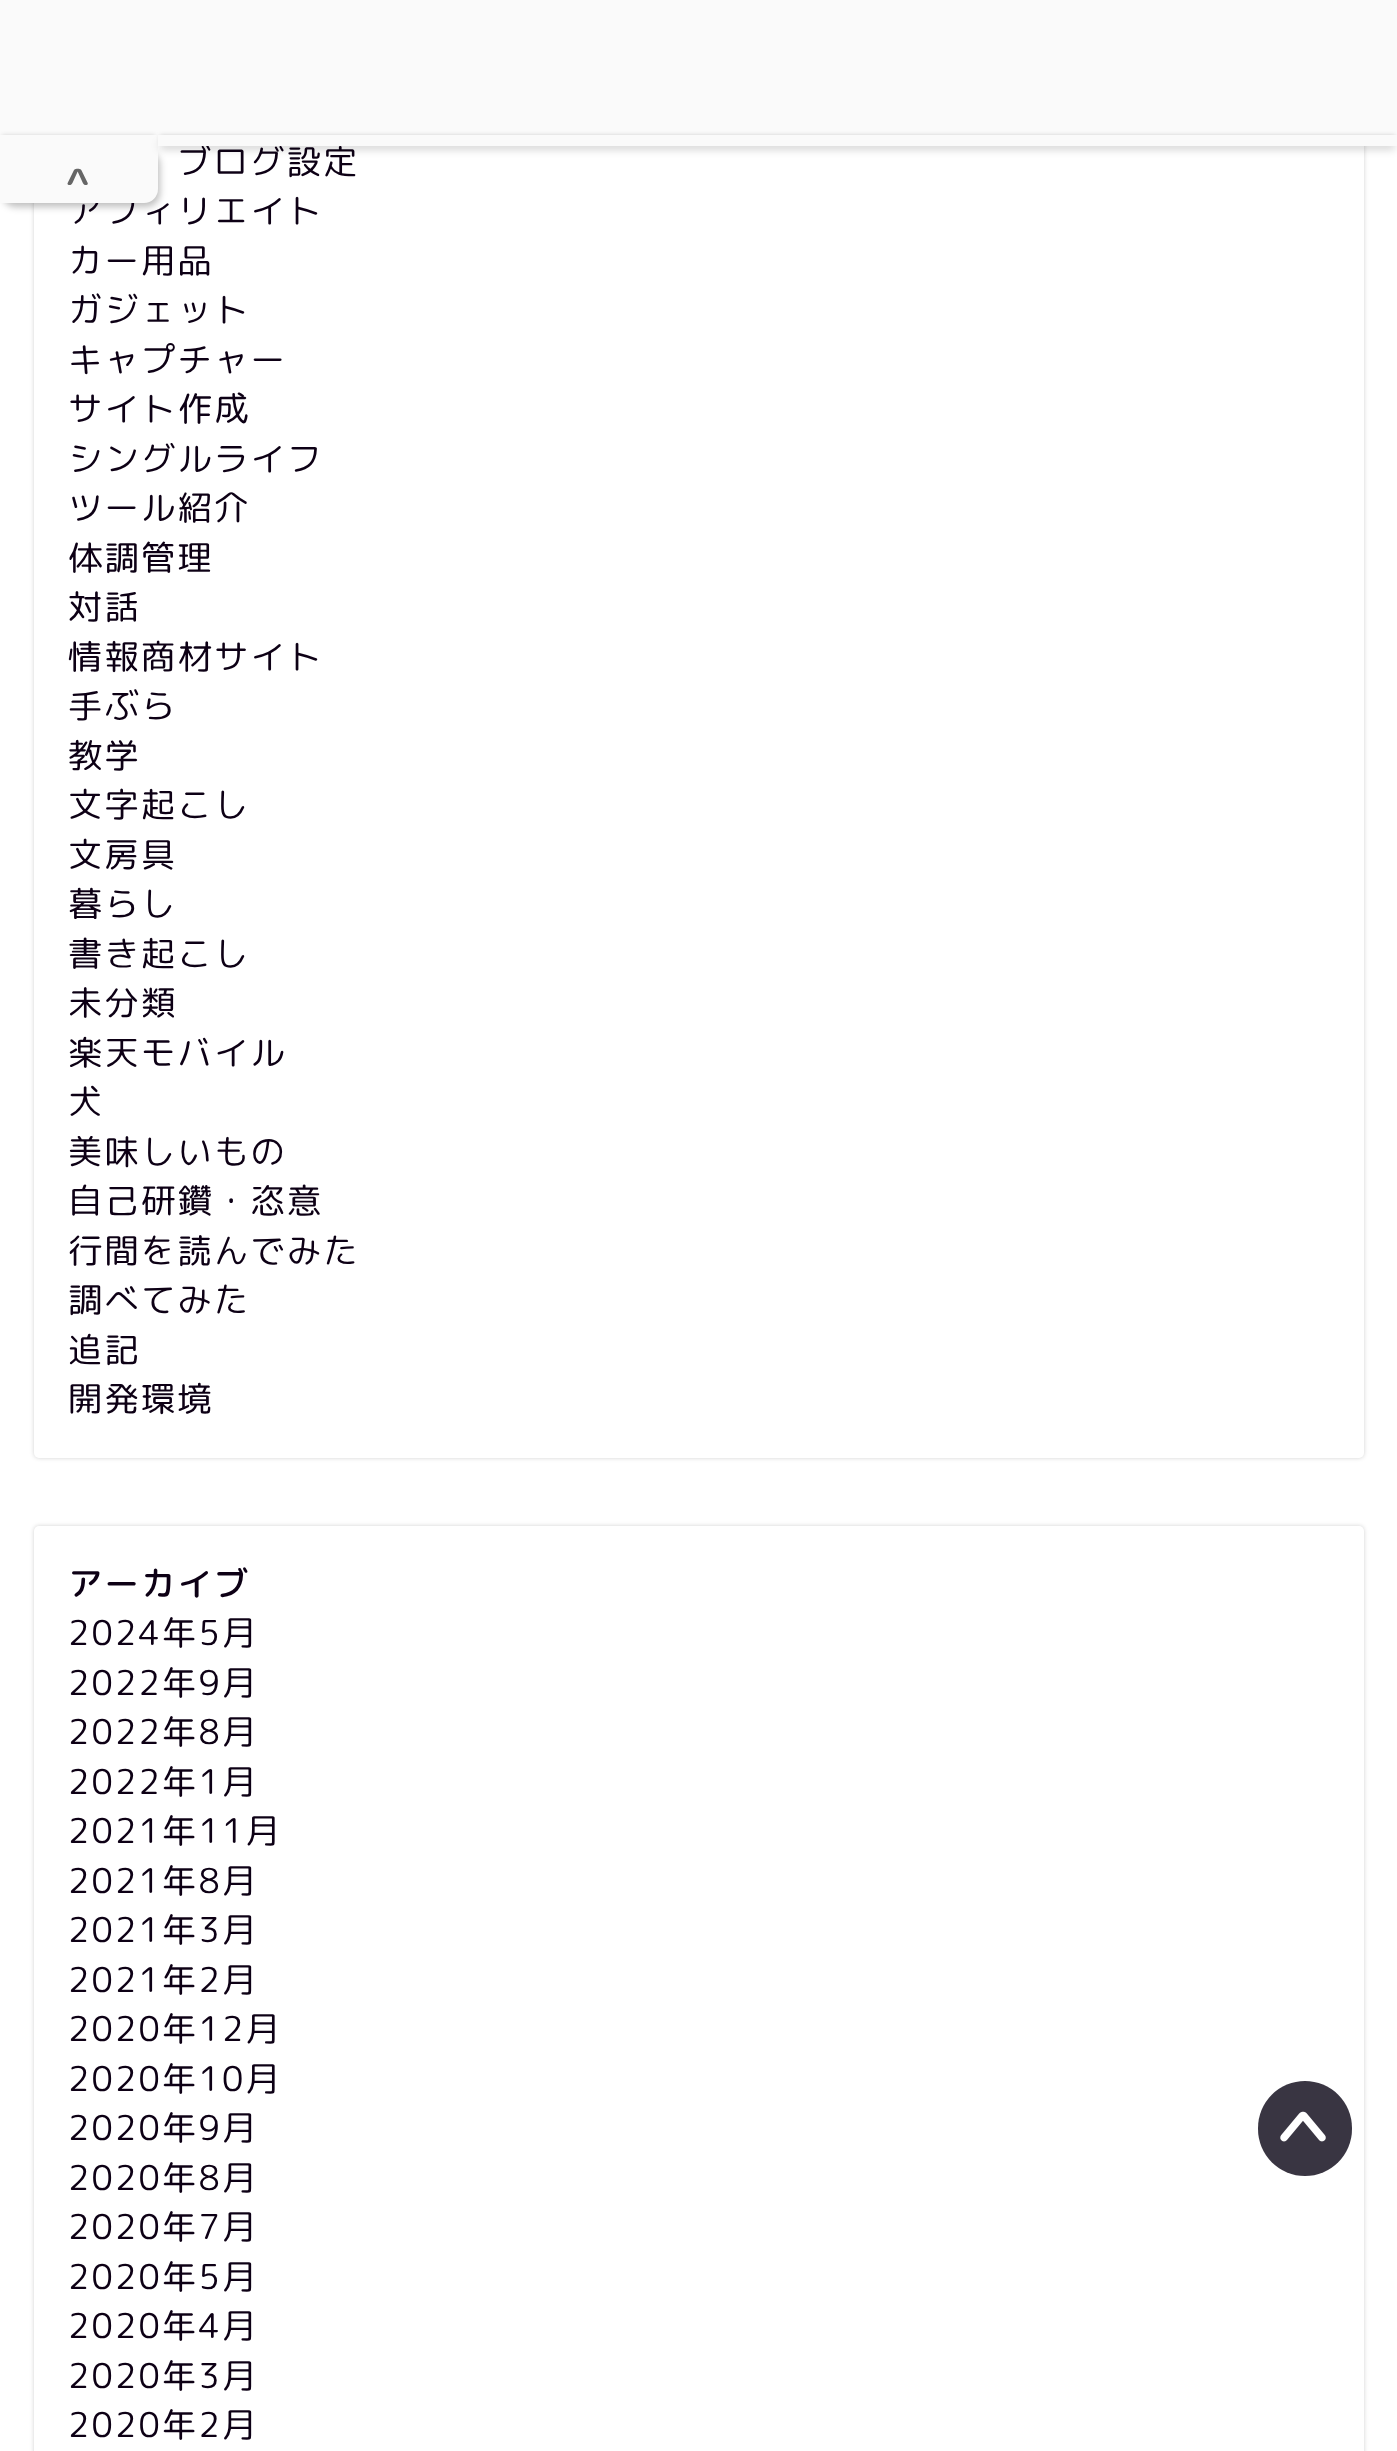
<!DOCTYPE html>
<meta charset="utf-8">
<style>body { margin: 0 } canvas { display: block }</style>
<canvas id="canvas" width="1397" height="2451"></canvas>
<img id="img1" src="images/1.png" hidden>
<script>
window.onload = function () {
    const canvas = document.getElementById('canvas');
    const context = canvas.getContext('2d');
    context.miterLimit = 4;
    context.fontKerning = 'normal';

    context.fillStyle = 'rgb(255, 255, 255)';
    context.fillRect(0, 0, 1397, 2451);
    context.fillStyle = 'rgba(0, 0, 0, 0.18)';
    context.filter = 'blur(2px)';
    context.beginPath();
    context.roundRect(34, -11, 1330, 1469, 5);
    context.fill();
    context.filter = 'none';
    context.fillStyle = 'rgb(255, 255, 255)';
    context.beginPath();
    context.roundRect(34, -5, 1330, 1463, 5);
    context.fill();
    context.fillStyle = 'rgba(0, 0, 0, 0.18)';
    context.filter = 'blur(2px)';
    context.beginPath();
    context.roundRect(34, 1526, 1330, 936, 5);
    context.fill();
    context.filter = 'none';
    context.fillStyle = 'rgb(255, 255, 255)';
    context.beginPath();
    context.roundRect(34, 1526, 1330, 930, 5);
    context.fill();
    context.fillStyle = 'rgb(250, 250, 250)';
    context.fillRect(0, 0, 1397, 135);
    context.fillStyle = 'rgba(0, 0, 0, 0.25)';
    context.filter = 'blur(3.5px)';
    context.beginPath();
    context.roundRect(2, 151, 158, 56, 14);
    context.fill();
    context.filter = 'none';
    context.fillStyle = 'rgb(57, 53, 66)';
    context.beginPath();
    context.roundRect(1258, 2081, 94, 95, 47);
    context.fill();
    context.drawImage(document.getElementById('img1'), 1280, 2111, 46, 31);
    context.letterSpacing = '2.25px';
    context.font = '34.25px "Rounded Mplus 1c"';
    context.fillStyle = 'rgb(13, 0, 21)';
    context.fillText('ブログ設定', 177, 174);
    context.fillText('アフィリエイト', 68, 223);
    context.fillText('カー用品', 68, 273);
    context.fillText('ガジェット', 68, 322);
    context.fillText('キャプチャー', 68, 372);
    context.fillText('サイト作成', 68, 421);
    context.fillText('シングルライフ', 68, 471);
    context.fillText('ツール紹介', 68, 520);
    context.fillText('体調管理', 68, 570);
    context.fillText('対話', 68, 619);
    context.fillText('情報商材サイト', 68, 669);
    context.fillText('手ぶら', 68, 718);
    context.fillText('教学', 68, 768);
    context.fillText('文字起こし', 68, 817);
    context.fillText('文房具', 68, 867);
    context.fillText('暮らし', 68, 916);
    context.fillText('書き起こし', 68, 966);
    context.fillText('未分類', 68, 1015);
    context.fillText('楽天モバイル', 68, 1065);
    context.fillText('犬', 68, 1114);
    context.fillText('美味しいもの', 68, 1164);
    context.fillText('自己研鑽・恣意', 68, 1213);
    context.fillText('行間を読んでみた', 68, 1263);
    context.fillText('調べてみた', 68, 1312);
    context.fillText('追記', 68, 1362);
    context.fillText('開発環境', 68, 1411);
    context.font = '500 34.25px "Rounded Mplus 1c"';
    context.fillText('アーカイブ', 68, 1596);
    context.font = '34.25px "Rounded Mplus 1c"';
    context.fillText('2024年5月', 68, 1645);
    context.fillText('2022年9月', 68, 1695);
    context.fillText('2022年8月', 68, 1744);
    context.fillText('2022年1月', 68, 1794);
    context.fillText('2021年11月', 68, 1843);
    context.fillText('2021年8月', 68, 1893);
    context.fillText('2021年3月', 68, 1942);
    context.fillText('2021年2月', 68, 1992);
    context.fillText('2020年12月', 68, 2041);
    context.fillText('2020年10月', 68, 2091);
    context.fillText('2020年9月', 68, 2140);
    context.fillText('2020年8月', 68, 2190);
    context.fillText('2020年7月', 68, 2239);
    context.fillText('2020年5月', 68, 2289);
    context.fillText('2020年4月', 68, 2338);
    context.fillText('2020年3月', 68, 2388);
    context.fillText('2020年2月', 68, 2437);
    context.fillStyle = 'rgb(250, 250, 250)';
    context.beginPath();
    context.roundRect(0, 146, 158, 57, [0, 0, 14, 0]);
    context.fill();
    context.fillStyle = 'rgba(0, 0, 0, 0.15)';
    context.filter = 'blur(2px)';
    context.beginPath();
    context.rect(2, 135, 153, 7);
    context.fill();
    context.filter = 'none';
    context.fillStyle = 'rgb(250, 250, 250)';
    context.fillRect(0, 135, 158, 11);
    context.fillStyle = 'rgba(0, 0, 0, 0.2)';
    context.filter = 'blur(4.5px)';
    context.beginPath();
    context.rect(160, 142, 1235, 7);
    context.fill();
    context.filter = 'none';
    context.fillStyle = 'rgba(0, 0, 0, 0.15)';
    context.filter = 'blur(2px)';
    context.beginPath();
    context.rect(160, 135, 1235, 7);
    context.fill();
    context.filter = 'none';
    context.fillStyle = 'rgb(250, 250, 250)';
    context.fillRect(158, 135, 1239, 11);
    context.font = 'bold 36px "Rounded Mplus 1c Bold"';
    context.fillStyle = 'rgb(102, 102, 102)';
    context.fillText('^', 66, 195);
};
</script>
